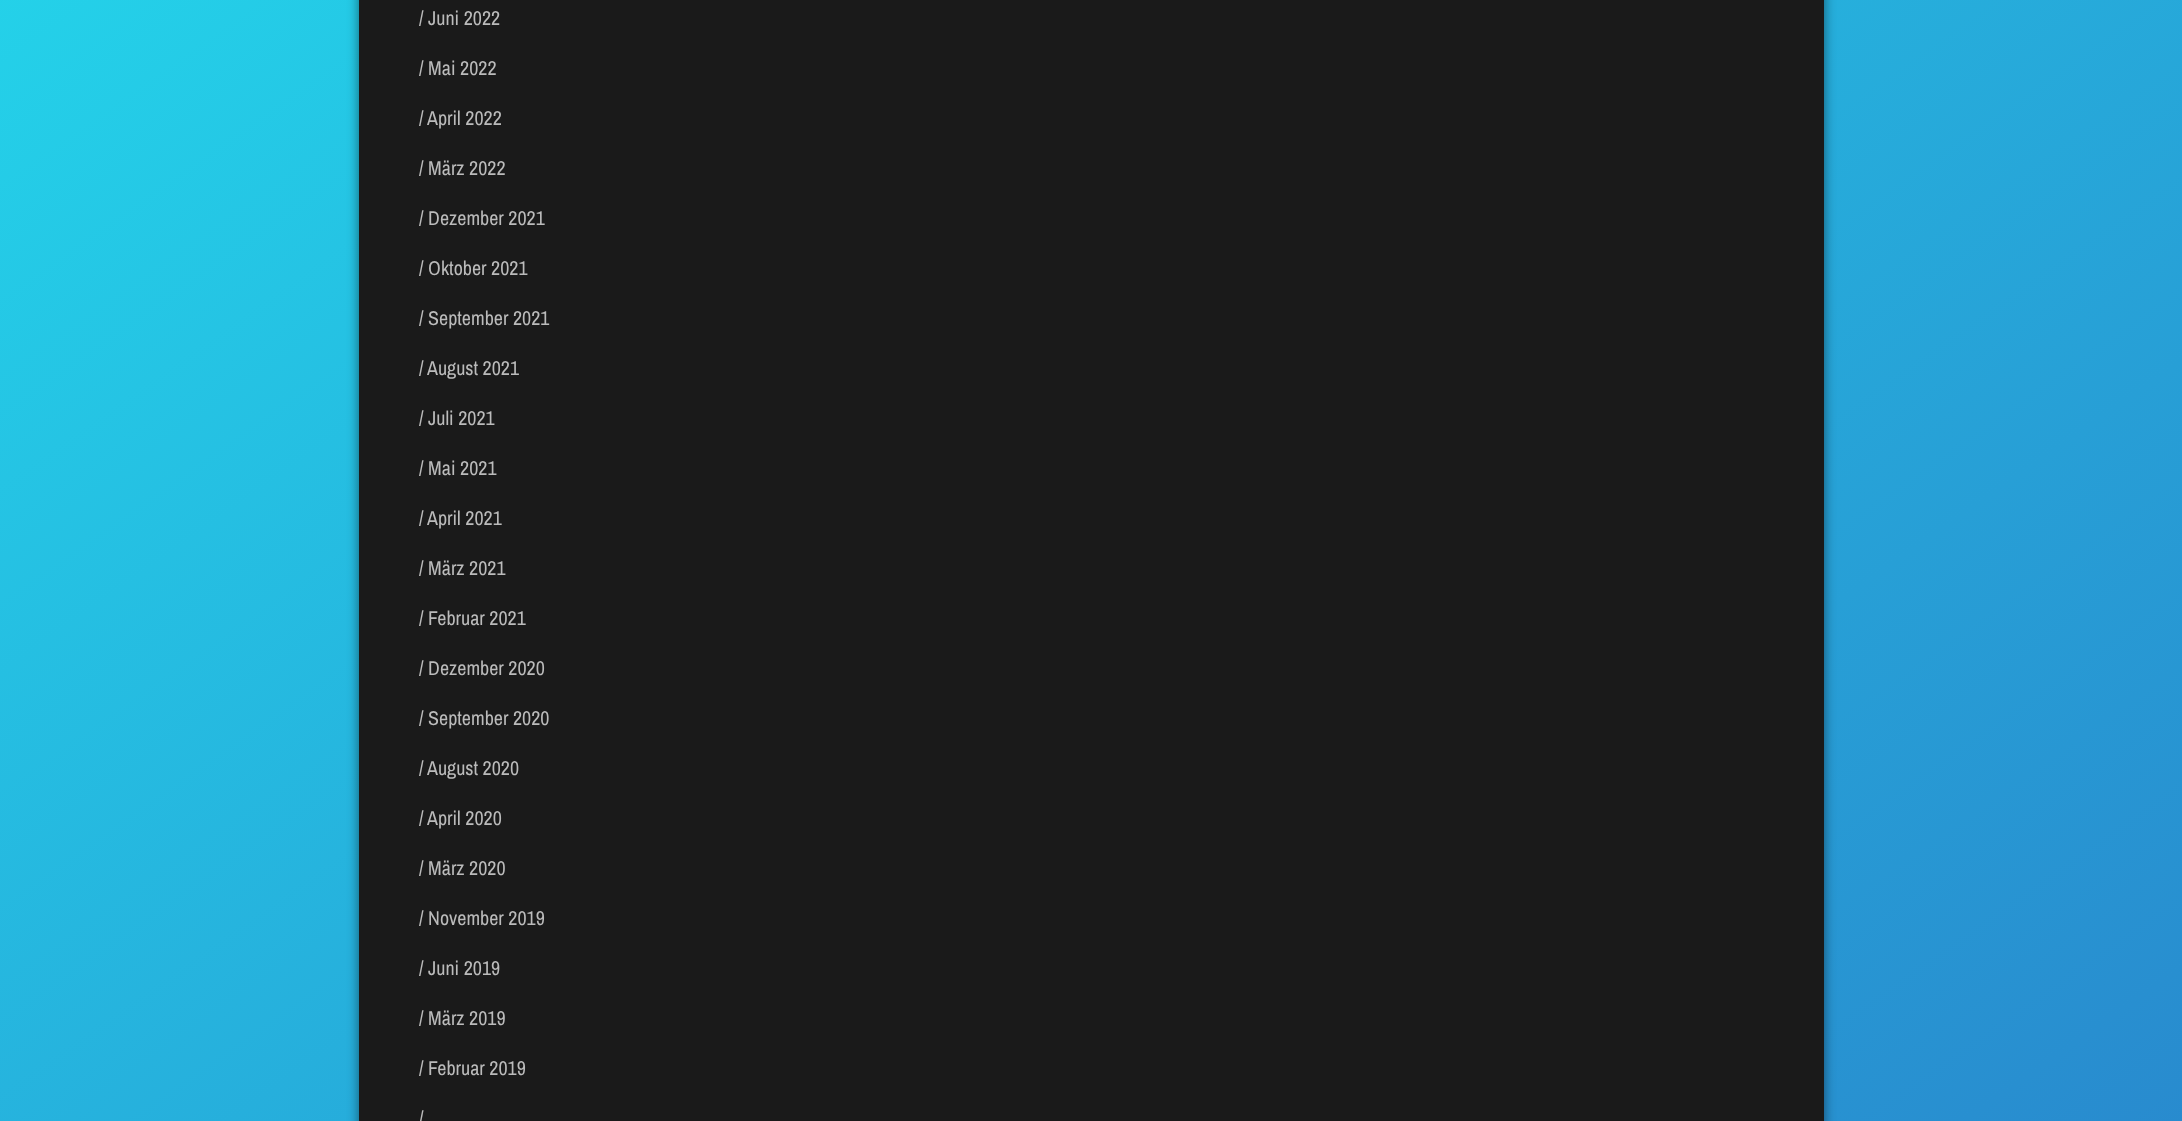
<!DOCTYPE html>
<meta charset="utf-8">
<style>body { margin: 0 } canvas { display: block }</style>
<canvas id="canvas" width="2182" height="1121"></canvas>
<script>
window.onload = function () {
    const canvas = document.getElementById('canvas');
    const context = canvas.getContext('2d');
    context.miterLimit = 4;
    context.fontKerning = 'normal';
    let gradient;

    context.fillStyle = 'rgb(255, 255, 255)';
    context.fillRect(0, 0, 2182, 1121);
    gradient = context.createLinearGradient(2134, 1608, 48, -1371);
    gradient.addColorStop(0, 'rgb(41, 127, 202)');
    gradient.addColorStop(1, 'rgb(34, 244, 246)');
    context.fillStyle = gradient;
    context.fillRect(0, 0, 2182, 1121);
    context.fillStyle = 'rgba(0, 0, 0, 0.5)';
    context.filter = 'blur(6px)';
    context.beginPath();
    context.roundRect(359, -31, 1465, 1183, 13);
    context.fill();
    context.filter = 'none';
    context.fillStyle = 'rgb(26, 26, 26)';
    context.fillRect(359, 0, 1465, 1121);
    context.font = '20px Archivo Narrow';
    context.fillStyle = 'rgb(187, 187, 187)';
    context.fillText('/ Juni 2022', 419, 25);
    context.fillText('/ Mai 2022', 419, 75);
    context.fillText('/', 419, 125);
    context.fillText('April 2022', 427, 125);
    context.fillText('/ März 2022', 419, 175);
    context.fillText('/ Dezember 2021', 419, 225);
    context.fillText('/ Oktober 2021', 419, 275);
    context.fillText('/ September 2021', 419, 325);
    context.fillText('/', 419, 375);
    context.fillText('August 2021', 427, 375);
    context.fillText('/ Juli 2021', 419, 425);
    context.fillText('/ Mai 2021', 419, 475);
    context.fillText('/', 419, 525);
    context.fillText('April 2021', 427, 525);
    context.fillText('/ März 2021', 419, 575);
    context.fillText('/ Februar 2021', 419, 625);
    context.fillText('/ Dezember 2020', 419, 675);
    context.fillText('/ September 2020', 419, 725);
    context.fillText('/', 419, 775);
    context.fillText('August 2020', 427, 775);
    context.fillText('/', 419, 825);
    context.fillText('April 2020', 427, 825);
    context.fillText('/ März 2020', 419, 875);
    context.fillText('/ November 2019', 419, 925);
    context.fillText('/ Juni 2019', 419, 975);
    context.fillText('/ März 2019', 419, 1025);
    context.fillText('/ Februar 2019', 419, 1075);
    context.fillText('/', 419, 1125);
};
</script>
